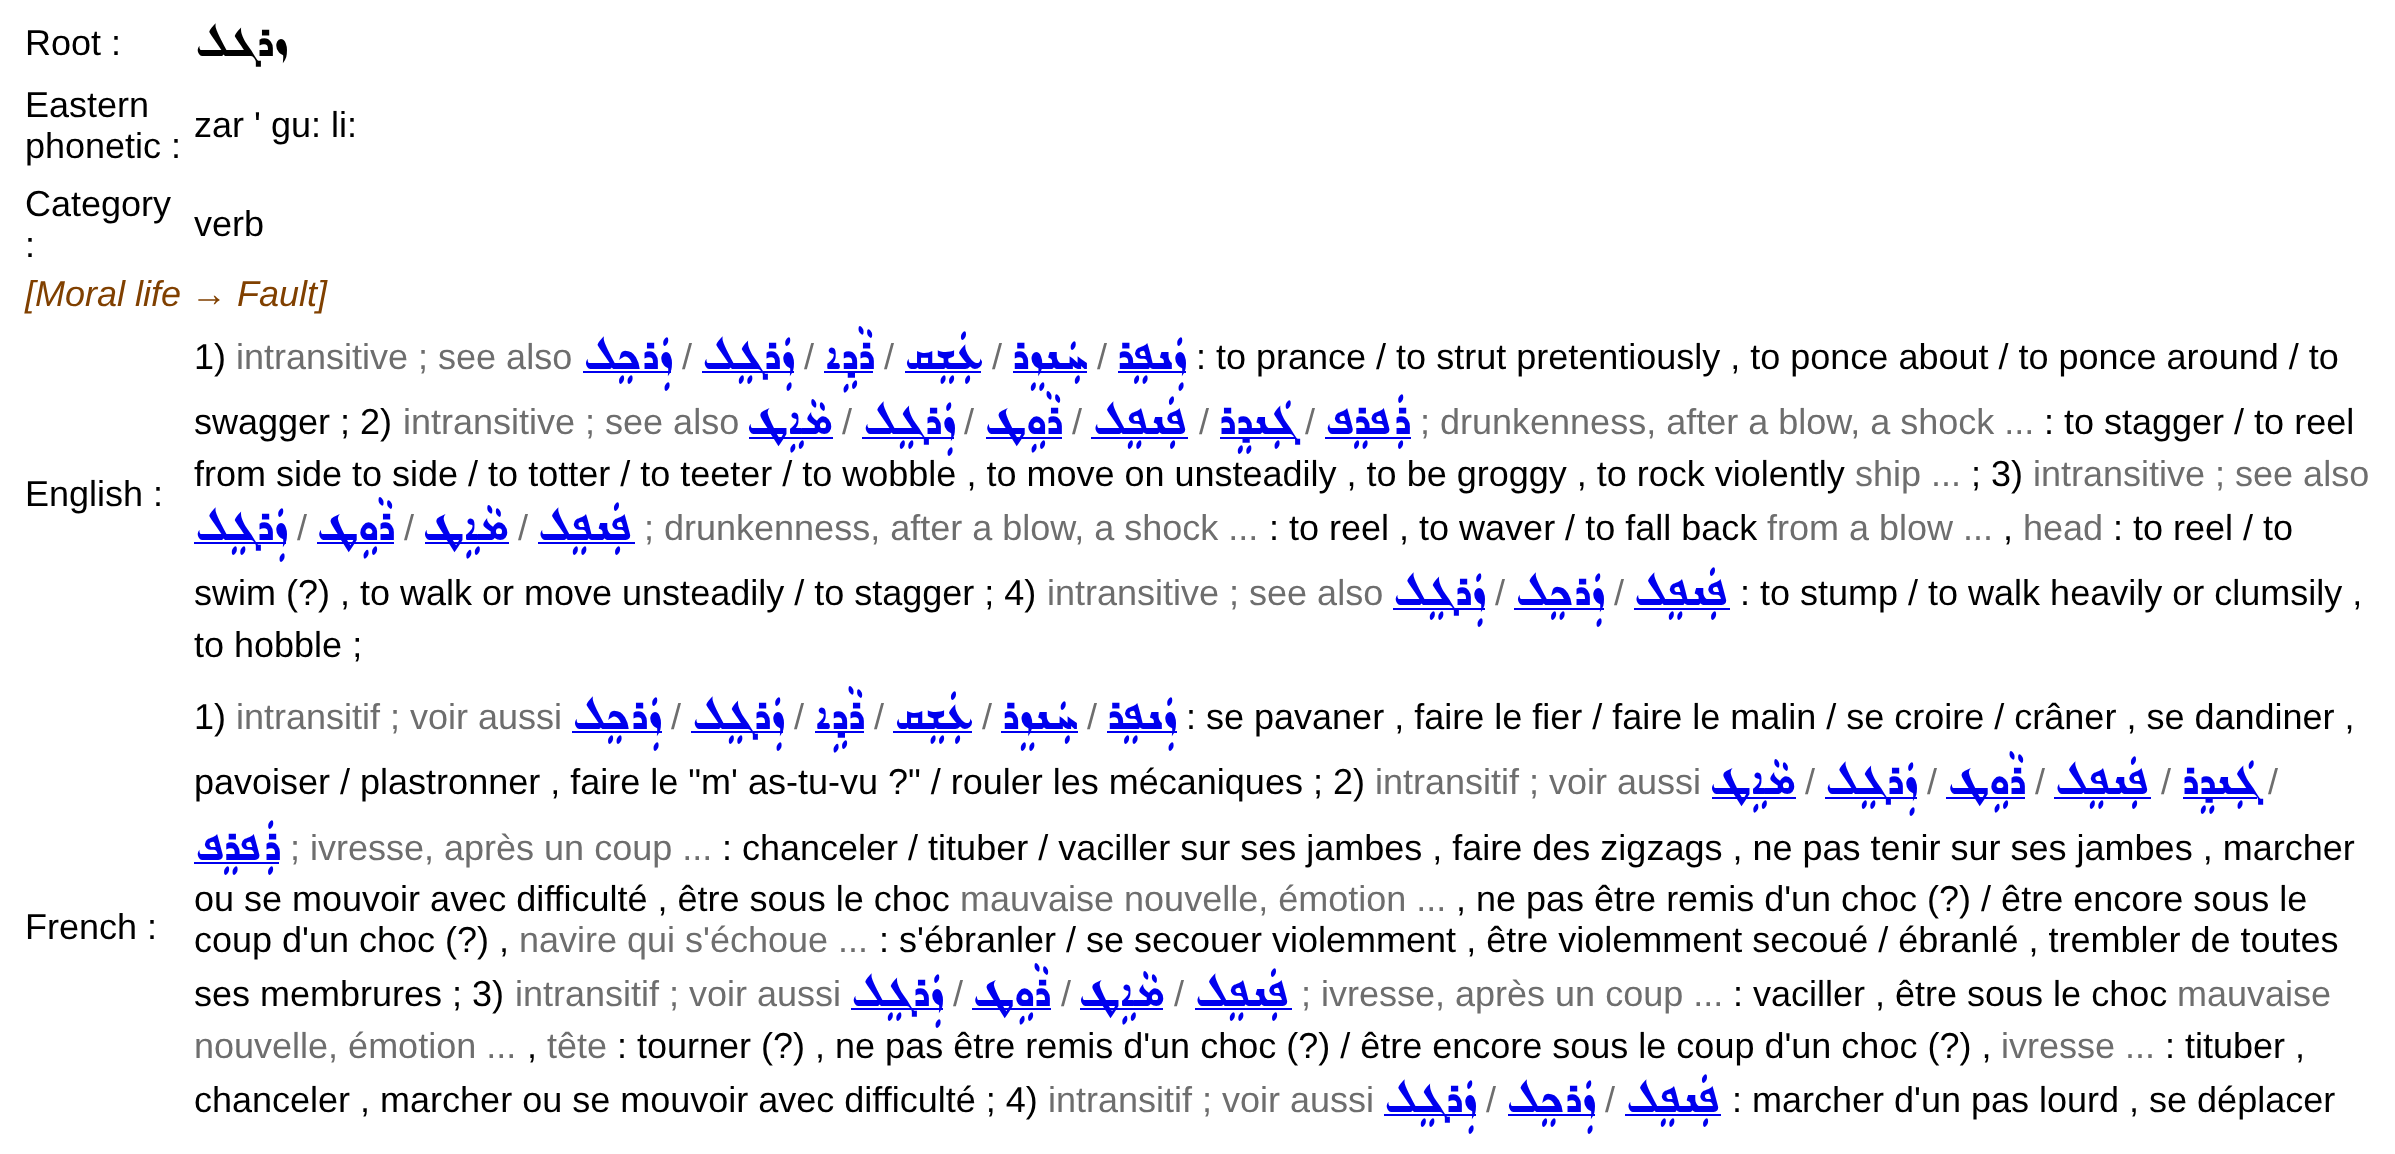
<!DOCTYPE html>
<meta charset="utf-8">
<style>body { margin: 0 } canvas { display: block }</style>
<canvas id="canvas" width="2395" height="1154"></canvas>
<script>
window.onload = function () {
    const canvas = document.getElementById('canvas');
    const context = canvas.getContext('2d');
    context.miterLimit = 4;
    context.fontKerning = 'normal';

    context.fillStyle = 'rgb(255, 255, 255)';
    context.fillRect(0, 0, 2395, 1154);
    context.fillStyle = 'rgb(0, 0, 238)';
    context.fillRect(583, 371, 88, 2);
    context.fillRect(702, 371, 92, 2);
    context.fillRect(824, 371, 49, 2);
    context.fillRect(905, 371, 76, 2);
    context.fillRect(1013, 371, 74, 2);
    context.fillRect(1118, 371, 68, 2);
    context.fillRect(749, 437, 84, 2);
    context.fillRect(862, 437, 92, 2);
    context.fillRect(986, 437, 76, 2);
    context.fillRect(1091, 437, 97, 2);
    context.fillRect(1220, 437, 76, 2);
    context.fillRect(1325, 437, 86, 2);
    context.fillRect(194, 542, 92, 2);
    context.fillRect(317, 542, 77, 2);
    context.fillRect(425, 542, 84, 2);
    context.fillRect(538, 542, 97, 2);
    context.fillRect(1393, 608, 92, 2);
    context.fillRect(1514, 608, 90, 2);
    context.fillRect(1634, 608, 96, 2);
    context.fillRect(572, 731, 90, 2);
    context.fillRect(691, 731, 92, 2);
    context.fillRect(815, 731, 49, 2);
    context.fillRect(893, 731, 79, 2);
    context.fillRect(1001, 731, 77, 2);
    context.fillRect(1107, 731, 70, 2);
    context.fillRect(1712, 797, 84, 2);
    context.fillRect(1825, 797, 92, 2);
    context.fillRect(1946, 797, 79, 2);
    context.fillRect(2054, 797, 97, 2);
    context.fillRect(2183, 797, 74, 2);
    context.fillRect(194, 862, 85, 2);
    context.fillRect(851, 1008, 92, 2);
    context.fillRect(972, 1008, 79, 2);
    context.fillRect(1080, 1008, 83, 2);
    context.fillRect(1195, 1008, 97, 2);
    context.fillRect(1384, 1114, 92, 2);
    context.fillRect(1508, 1114, 87, 2);
    context.fillRect(1625, 1114, 96, 2);
    context.font = '36px Liberation Sans';
    context.fillStyle = 'rgb(0, 0, 0)';
    context.fillText('Root :', 25, 55);
    context.direction = 'rtl';
    context.font = '58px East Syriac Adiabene';
    context.fillText('ܙܪܓܠ', 287, 56);
    context.direction = 'ltr';
    context.font = '36px Liberation Sans';
    context.fillText('Eastern', 25, 117);
    context.fillText('phonetic :', 25, 158);
    context.fillText('zar \' gu: li:', 194, 137);
    context.fillText('Category', 25, 216);
    context.fillText(':', 25, 257);
    context.fillText('verb', 194, 236);
    context.font = 'italic 36px Liberation Sans';
    context.fillStyle = 'rgb(128, 64, 0)';
    context.fillText('[Moral life → Fault]', 25, 306);
    context.font = '36px Liberation Sans';
    context.fillStyle = 'rgb(0, 0, 0)';
    context.fillText('English :', 25, 506);
    context.fillText('1)', 194, 369);
    context.fillStyle = 'rgb(110, 110, 110)';
    context.fillText('intransitive ; see also', 236, 369);
    context.direction = 'rtl';
    context.font = '58px East Syriac Adiabene';
    context.fillStyle = 'rgb(0, 0, 238)';
    context.fillText('ܙܲܪܟܸܠ', 672, 369);
    context.direction = 'ltr';
    context.font = '36px Liberation Sans';
    context.fillStyle = 'rgb(110, 110, 110)';
    context.fillText('/', 682, 369);
    context.direction = 'rtl';
    context.font = '58px East Syriac Adiabene';
    context.fillStyle = 'rgb(0, 0, 238)';
    context.fillText('ܙܲܪܓܸܠ', 794, 369);
    context.direction = 'ltr';
    context.font = '36px Liberation Sans';
    context.fillStyle = 'rgb(110, 110, 110)';
    context.fillText('/', 804, 369);
    context.direction = 'rtl';
    context.font = '58px East Syriac Adiabene';
    context.fillStyle = 'rgb(0, 0, 238)';
    context.fillText('ܪܵܕܹܐ', 874, 369);
    context.direction = 'ltr';
    context.font = '36px Liberation Sans';
    context.fillStyle = 'rgb(110, 110, 110)';
    context.fillText('/', 884, 369);
    context.direction = 'rtl';
    context.font = '58px East Syriac Adiabene';
    context.fillStyle = 'rgb(0, 0, 238)';
    context.fillText('ܥܲܫܸܩ', 982, 369);
    context.direction = 'ltr';
    context.font = '36px Liberation Sans';
    context.fillStyle = 'rgb(110, 110, 110)';
    context.fillText('/', 992, 369);
    context.direction = 'rtl';
    context.font = '58px East Syriac Adiabene';
    context.fillStyle = 'rgb(0, 0, 238)';
    context.fillText('ܚܲܢܙܸܪ', 1087, 369);
    context.direction = 'ltr';
    context.font = '36px Liberation Sans';
    context.fillStyle = 'rgb(110, 110, 110)';
    context.fillText('/', 1097, 369);
    context.direction = 'rtl';
    context.font = '58px East Syriac Adiabene';
    context.fillStyle = 'rgb(0, 0, 238)';
    context.fillText('ܙܲܢܦܸܪ', 1186, 369);
    context.direction = 'ltr';
    context.font = '36px Liberation Sans';
    context.fillStyle = 'rgb(0, 0, 0)';
    context.fillText(': to prance / to strut pretentiously , to ponce about / to ponce around / to', 1196, 369);
    context.fillText('swagger ; 2)', 194, 434);
    context.fillStyle = 'rgb(110, 110, 110)';
    context.fillText('intransitive ; see also', 403, 434);
    context.direction = 'rtl';
    context.font = '58px East Syriac Adiabene';
    context.fillStyle = 'rgb(0, 0, 238)';
    context.fillText('ܡܵܐܹܛ', 832, 434);
    context.direction = 'ltr';
    context.font = '36px Liberation Sans';
    context.fillStyle = 'rgb(110, 110, 110)';
    context.fillText('/', 842, 434);
    context.direction = 'rtl';
    context.font = '58px East Syriac Adiabene';
    context.fillStyle = 'rgb(0, 0, 238)';
    context.fillText('ܙܲܪܓܸܠ', 955, 434);
    context.direction = 'ltr';
    context.font = '36px Liberation Sans';
    context.fillStyle = 'rgb(110, 110, 110)';
    context.fillText('/', 964, 434);
    context.direction = 'rtl';
    context.font = '58px East Syriac Adiabene';
    context.fillStyle = 'rgb(0, 0, 238)';
    context.fillText('ܪܵܘܹܛ', 1062, 434);
    context.direction = 'ltr';
    context.font = '36px Liberation Sans';
    context.fillStyle = 'rgb(110, 110, 110)';
    context.fillText('/', 1072, 434);
    context.direction = 'rtl';
    context.font = '58px East Syriac Adiabene';
    context.fillStyle = 'rgb(0, 0, 238)';
    context.fillText('ܦܲܢܦܸܠ', 1189, 434);
    context.direction = 'ltr';
    context.font = '36px Liberation Sans';
    context.fillStyle = 'rgb(110, 110, 110)';
    context.fillText('/', 1199, 434);
    context.direction = 'rtl';
    context.font = '58px East Syriac Adiabene';
    context.fillStyle = 'rgb(0, 0, 238)';
    context.fillText('ܓܲܢܕܸܪ', 1295, 434);
    context.direction = 'ltr';
    context.font = '36px Liberation Sans';
    context.fillStyle = 'rgb(110, 110, 110)';
    context.fillText('/', 1305, 434);
    context.direction = 'rtl';
    context.font = '58px East Syriac Adiabene';
    context.fillStyle = 'rgb(0, 0, 238)';
    context.fillText('ܪܲܦܪܸܦ', 1410, 434);
    context.direction = 'ltr';
    context.font = '36px Liberation Sans';
    context.fillStyle = 'rgb(110, 110, 110)';
    context.fillText('; drunkenness, after a blow, a shock ...', 1420, 434);
    context.fillStyle = 'rgb(0, 0, 0)';
    context.fillText(': to stagger / to reel', 2044, 434);
    context.fillText('from side to side / to totter / to teeter / to wobble , to move on unsteadily , to be groggy , to rock violently', 194, 486);
    context.fillStyle = 'rgb(110, 110, 110)';
    context.fillText('ship ...', 1855, 486);
    context.fillStyle = 'rgb(0, 0, 0)';
    context.fillText('; 3)', 1971, 486);
    context.fillStyle = 'rgb(110, 110, 110)';
    context.fillText('intransitive ; see also', 2033, 486);
    context.direction = 'rtl';
    context.font = '58px East Syriac Adiabene';
    context.fillStyle = 'rgb(0, 0, 238)';
    context.fillText('ܙܲܪܓܸܠ', 287, 540);
    context.direction = 'ltr';
    context.font = '36px Liberation Sans';
    context.fillStyle = 'rgb(110, 110, 110)';
    context.fillText('/', 297, 540);
    context.direction = 'rtl';
    context.font = '58px East Syriac Adiabene';
    context.fillStyle = 'rgb(0, 0, 238)';
    context.fillText('ܪܵܘܹܛ', 394, 540);
    context.direction = 'ltr';
    context.font = '36px Liberation Sans';
    context.fillStyle = 'rgb(110, 110, 110)';
    context.fillText('/', 404, 540);
    context.direction = 'rtl';
    context.font = '58px East Syriac Adiabene';
    context.fillStyle = 'rgb(0, 0, 238)';
    context.fillText('ܡܵܐܹܛ', 508, 540);
    context.direction = 'ltr';
    context.font = '36px Liberation Sans';
    context.fillStyle = 'rgb(110, 110, 110)';
    context.fillText('/', 518, 540);
    context.direction = 'rtl';
    context.font = '58px East Syriac Adiabene';
    context.fillStyle = 'rgb(0, 0, 238)';
    context.fillText('ܦܲܢܦܸܠ', 634, 540);
    context.direction = 'ltr';
    context.font = '36px Liberation Sans';
    context.fillStyle = 'rgb(110, 110, 110)';
    context.fillText('; drunkenness, after a blow, a shock ...', 644, 540);
    context.fillStyle = 'rgb(0, 0, 0)';
    context.fillText(': to reel , to waver / to fall back', 1269, 540);
    context.fillStyle = 'rgb(110, 110, 110)';
    context.fillText('from a blow ...', 1767, 540);
    context.fillStyle = 'rgb(0, 0, 0)';
    context.fillText(',', 2003, 540);
    context.fillStyle = 'rgb(110, 110, 110)';
    context.fillText('head', 2023, 540);
    context.fillStyle = 'rgb(0, 0, 0)';
    context.fillText(': to reel / to', 2113, 540);
    context.fillText('swim (?) , to walk or move unsteadily / to stagger ; 4)', 194, 605);
    context.fillStyle = 'rgb(110, 110, 110)';
    context.fillText('intransitive ; see also', 1047, 605);
    context.direction = 'rtl';
    context.font = '58px East Syriac Adiabene';
    context.fillStyle = 'rgb(0, 0, 238)';
    context.fillText('ܙܲܪܓܸܠ', 1485, 605);
    context.direction = 'ltr';
    context.font = '36px Liberation Sans';
    context.fillStyle = 'rgb(110, 110, 110)';
    context.fillText('/', 1495, 605);
    context.direction = 'rtl';
    context.font = '58px East Syriac Adiabene';
    context.fillStyle = 'rgb(0, 0, 238)';
    context.fillText('ܙܲܪܟܸܠ', 1604, 605);
    context.direction = 'ltr';
    context.font = '36px Liberation Sans';
    context.fillStyle = 'rgb(110, 110, 110)';
    context.fillText('/', 1614, 605);
    context.direction = 'rtl';
    context.font = '58px East Syriac Adiabene';
    context.fillStyle = 'rgb(0, 0, 238)';
    context.fillText('ܦܲܢܦܸܠ', 1730, 605);
    context.direction = 'ltr';
    context.font = '36px Liberation Sans';
    context.fillStyle = 'rgb(0, 0, 0)';
    context.fillText(': to stump / to walk heavily or clumsily ,', 1740, 605);
    context.fillText('to hobble ;', 194, 657);
    context.fillText('French :', 25, 939);
    context.fillText('1)', 194, 729);
    context.fillStyle = 'rgb(110, 110, 110)';
    context.fillText('intransitif ; voir aussi', 236, 729);
    context.direction = 'rtl';
    context.font = '58px East Syriac Adiabene';
    context.fillStyle = 'rgb(0, 0, 238)';
    context.fillText('ܙܲܪܟܸܠ', 661, 729);
    context.direction = 'ltr';
    context.font = '36px Liberation Sans';
    context.fillStyle = 'rgb(110, 110, 110)';
    context.fillText('/', 671, 729);
    context.direction = 'rtl';
    context.font = '58px East Syriac Adiabene';
    context.fillStyle = 'rgb(0, 0, 238)';
    context.fillText('ܙܲܪܓܸܠ', 784, 729);
    context.direction = 'ltr';
    context.font = '36px Liberation Sans';
    context.fillStyle = 'rgb(110, 110, 110)';
    context.fillText('/', 794, 729);
    context.direction = 'rtl';
    context.font = '58px East Syriac Adiabene';
    context.fillStyle = 'rgb(0, 0, 238)';
    context.fillText('ܪܵܕܹܐ', 864, 729);
    context.direction = 'ltr';
    context.font = '36px Liberation Sans';
    context.fillStyle = 'rgb(110, 110, 110)';
    context.fillText('/', 874, 729);
    context.direction = 'rtl';
    context.font = '58px East Syriac Adiabene';
    context.fillStyle = 'rgb(0, 0, 238)';
    context.fillText('ܥܲܫܸܩ', 972, 729);
    context.direction = 'ltr';
    context.font = '36px Liberation Sans';
    context.fillStyle = 'rgb(110, 110, 110)';
    context.fillText('/', 982, 729);
    context.direction = 'rtl';
    context.font = '58px East Syriac Adiabene';
    context.fillStyle = 'rgb(0, 0, 238)';
    context.fillText('ܚܲܢܙܸܪ', 1077, 729);
    context.direction = 'ltr';
    context.font = '36px Liberation Sans';
    context.fillStyle = 'rgb(110, 110, 110)';
    context.fillText('/', 1087, 729);
    context.direction = 'rtl';
    context.font = '58px East Syriac Adiabene';
    context.fillStyle = 'rgb(0, 0, 238)';
    context.fillText('ܙܲܢܦܸܪ', 1176, 729);
    context.direction = 'ltr';
    context.font = '36px Liberation Sans';
    context.fillStyle = 'rgb(0, 0, 0)';
    context.fillText(': se pavaner , faire le fier / faire le malin / se croire / crâner , se dandiner ,', 1186, 729);
    context.fillText('pavoiser / plastronner , faire le "m\' as-tu-vu ?" / rouler les mécaniques ; 2)', 194, 794);
    context.fillStyle = 'rgb(110, 110, 110)';
    context.fillText('intransitif ; voir aussi', 1375, 794);
    context.direction = 'rtl';
    context.font = '58px East Syriac Adiabene';
    context.fillStyle = 'rgb(0, 0, 238)';
    context.fillText('ܡܵܐܹܛ', 1795, 794);
    context.direction = 'ltr';
    context.font = '36px Liberation Sans';
    context.fillStyle = 'rgb(110, 110, 110)';
    context.fillText('/', 1805, 794);
    context.direction = 'rtl';
    context.font = '58px East Syriac Adiabene';
    context.fillStyle = 'rgb(0, 0, 238)';
    context.fillText('ܙܲܪܓܸܠ', 1917, 794);
    context.direction = 'ltr';
    context.font = '36px Liberation Sans';
    context.fillStyle = 'rgb(110, 110, 110)';
    context.fillText('/', 1927, 794);
    context.direction = 'rtl';
    context.font = '58px East Syriac Adiabene';
    context.fillStyle = 'rgb(0, 0, 238)';
    context.fillText('ܪܵܘܹܛ', 2025, 794);
    context.direction = 'ltr';
    context.font = '36px Liberation Sans';
    context.fillStyle = 'rgb(110, 110, 110)';
    context.fillText('/', 2035, 794);
    context.direction = 'rtl';
    context.font = '58px East Syriac Adiabene';
    context.fillStyle = 'rgb(0, 0, 238)';
    context.fillText('ܦܲܢܦܸܠ', 2151, 794);
    context.direction = 'ltr';
    context.font = '36px Liberation Sans';
    context.fillStyle = 'rgb(110, 110, 110)';
    context.fillText('/', 2161, 794);
    context.direction = 'rtl';
    context.font = '58px East Syriac Adiabene';
    context.fillStyle = 'rgb(0, 0, 238)';
    context.fillText('ܓܲܢܕܸܪ', 2258, 794);
    context.direction = 'ltr';
    context.font = '36px Liberation Sans';
    context.fillStyle = 'rgb(110, 110, 110)';
    context.fillText('/', 2268, 794);
    context.direction = 'rtl';
    context.font = '58px East Syriac Adiabene';
    context.fillStyle = 'rgb(0, 0, 238)';
    context.fillText('ܪܲܦܪܸܦ', 280, 860);
    context.direction = 'ltr';
    context.font = '36px Liberation Sans';
    context.fillStyle = 'rgb(110, 110, 110)';
    context.fillText('; ivresse, après un coup ...', 290, 860);
    context.fillStyle = 'rgb(0, 0, 0)';
    context.fillText(': chanceler / tituber / vaciller sur ses jambes , faire des zigzags , ne pas tenir sur ses jambes , marcher', 722, 860);
    context.fillText('ou se mouvoir avec difficulté , être sous le choc', 194, 911);
    context.fillStyle = 'rgb(110, 110, 110)';
    context.fillText('mauvaise nouvelle, émotion ...', 960, 911);
    context.fillStyle = 'rgb(0, 0, 0)';
    context.fillText(', ne pas être remis d\'un choc (?) / être encore sous le', 1456, 911);
    context.fillText('coup d\'un choc (?) ,', 194, 952);
    context.fillStyle = 'rgb(110, 110, 110)';
    context.fillText('navire qui s\'échoue ...', 519, 952);
    context.fillStyle = 'rgb(0, 0, 0)';
    context.fillText(': s\'ébranler / se secouer violemment , être violemment secoué / ébranlé , trembler de toutes', 879, 952);
    context.fillText('ses membrures ; 3)', 194, 1006);
    context.fillStyle = 'rgb(110, 110, 110)';
    context.fillText('intransitif ; voir aussi', 515, 1006);
    context.direction = 'rtl';
    context.font = '58px East Syriac Adiabene';
    context.fillStyle = 'rgb(0, 0, 238)';
    context.fillText('ܙܲܪܓܸܠ', 943, 1006);
    context.direction = 'ltr';
    context.font = '36px Liberation Sans';
    context.fillStyle = 'rgb(110, 110, 110)';
    context.fillText('/', 953, 1006);
    context.direction = 'rtl';
    context.font = '58px East Syriac Adiabene';
    context.fillStyle = 'rgb(0, 0, 238)';
    context.fillText('ܪܵܘܹܛ', 1050, 1006);
    context.direction = 'ltr';
    context.font = '36px Liberation Sans';
    context.fillStyle = 'rgb(110, 110, 110)';
    context.fillText('/', 1061, 1006);
    context.direction = 'rtl';
    context.font = '58px East Syriac Adiabene';
    context.fillStyle = 'rgb(0, 0, 238)';
    context.fillText('ܡܵܐܹܛ', 1164, 1006);
    context.direction = 'ltr';
    context.font = '36px Liberation Sans';
    context.fillStyle = 'rgb(110, 110, 110)';
    context.fillText('/', 1174, 1006);
    context.direction = 'rtl';
    context.font = '58px East Syriac Adiabene';
    context.fillStyle = 'rgb(0, 0, 238)';
    context.fillText('ܦܲܢܦܸܠ', 1291, 1006);
    context.direction = 'ltr';
    context.font = '36px Liberation Sans';
    context.fillStyle = 'rgb(110, 110, 110)';
    context.fillText('; ivresse, après un coup ...', 1301, 1006);
    context.fillStyle = 'rgb(0, 0, 0)';
    context.fillText(': vaciller , être sous le choc', 1733, 1006);
    context.fillStyle = 'rgb(110, 110, 110)';
    context.fillText('mauvaise', 2177, 1006);
    context.fillText('nouvelle, émotion ...', 194, 1058);
    context.fillStyle = 'rgb(0, 0, 0)';
    context.fillText(',', 527, 1058);
    context.fillStyle = 'rgb(110, 110, 110)';
    context.fillText('tête', 547, 1058);
    context.fillStyle = 'rgb(0, 0, 0)';
    context.fillText(': tourner (?) , ne pas être remis d\'un choc (?) / être encore sous le coup d\'un choc (?) ,', 617, 1058);
    context.fillStyle = 'rgb(110, 110, 110)';
    context.fillText('ivresse ...', 2001, 1058);
    context.fillStyle = 'rgb(0, 0, 0)';
    context.fillText(': tituber ,', 2165, 1058);
    context.fillText('chanceler , marcher ou se mouvoir avec difficulté ; 4)', 194, 1112);
    context.fillStyle = 'rgb(110, 110, 110)';
    context.fillText('intransitif ; voir aussi', 1048, 1112);
    context.direction = 'rtl';
    context.font = '58px East Syriac Adiabene';
    context.fillStyle = 'rgb(0, 0, 238)';
    context.fillText('ܙܲܪܓܸܠ', 1476, 1112);
    context.direction = 'ltr';
    context.font = '36px Liberation Sans';
    context.fillStyle = 'rgb(110, 110, 110)';
    context.fillText('/', 1486, 1112);
    context.direction = 'rtl';
    context.font = '58px East Syriac Adiabene';
    context.fillStyle = 'rgb(0, 0, 238)';
    context.fillText('ܙܲܪܟܸܠ', 1595, 1112);
    context.direction = 'ltr';
    context.font = '36px Liberation Sans';
    context.fillStyle = 'rgb(110, 110, 110)';
    context.fillText('/', 1605, 1112);
    context.direction = 'rtl';
    context.font = '58px East Syriac Adiabene';
    context.fillStyle = 'rgb(0, 0, 238)';
    context.fillText('ܦܲܢܦܸܠ', 1722, 1112);
    context.direction = 'ltr';
    context.font = '36px Liberation Sans';
    context.fillStyle = 'rgb(0, 0, 0)';
    context.fillText(': marcher d\'un pas lourd , se déplacer', 1732, 1112);
};
</script>
